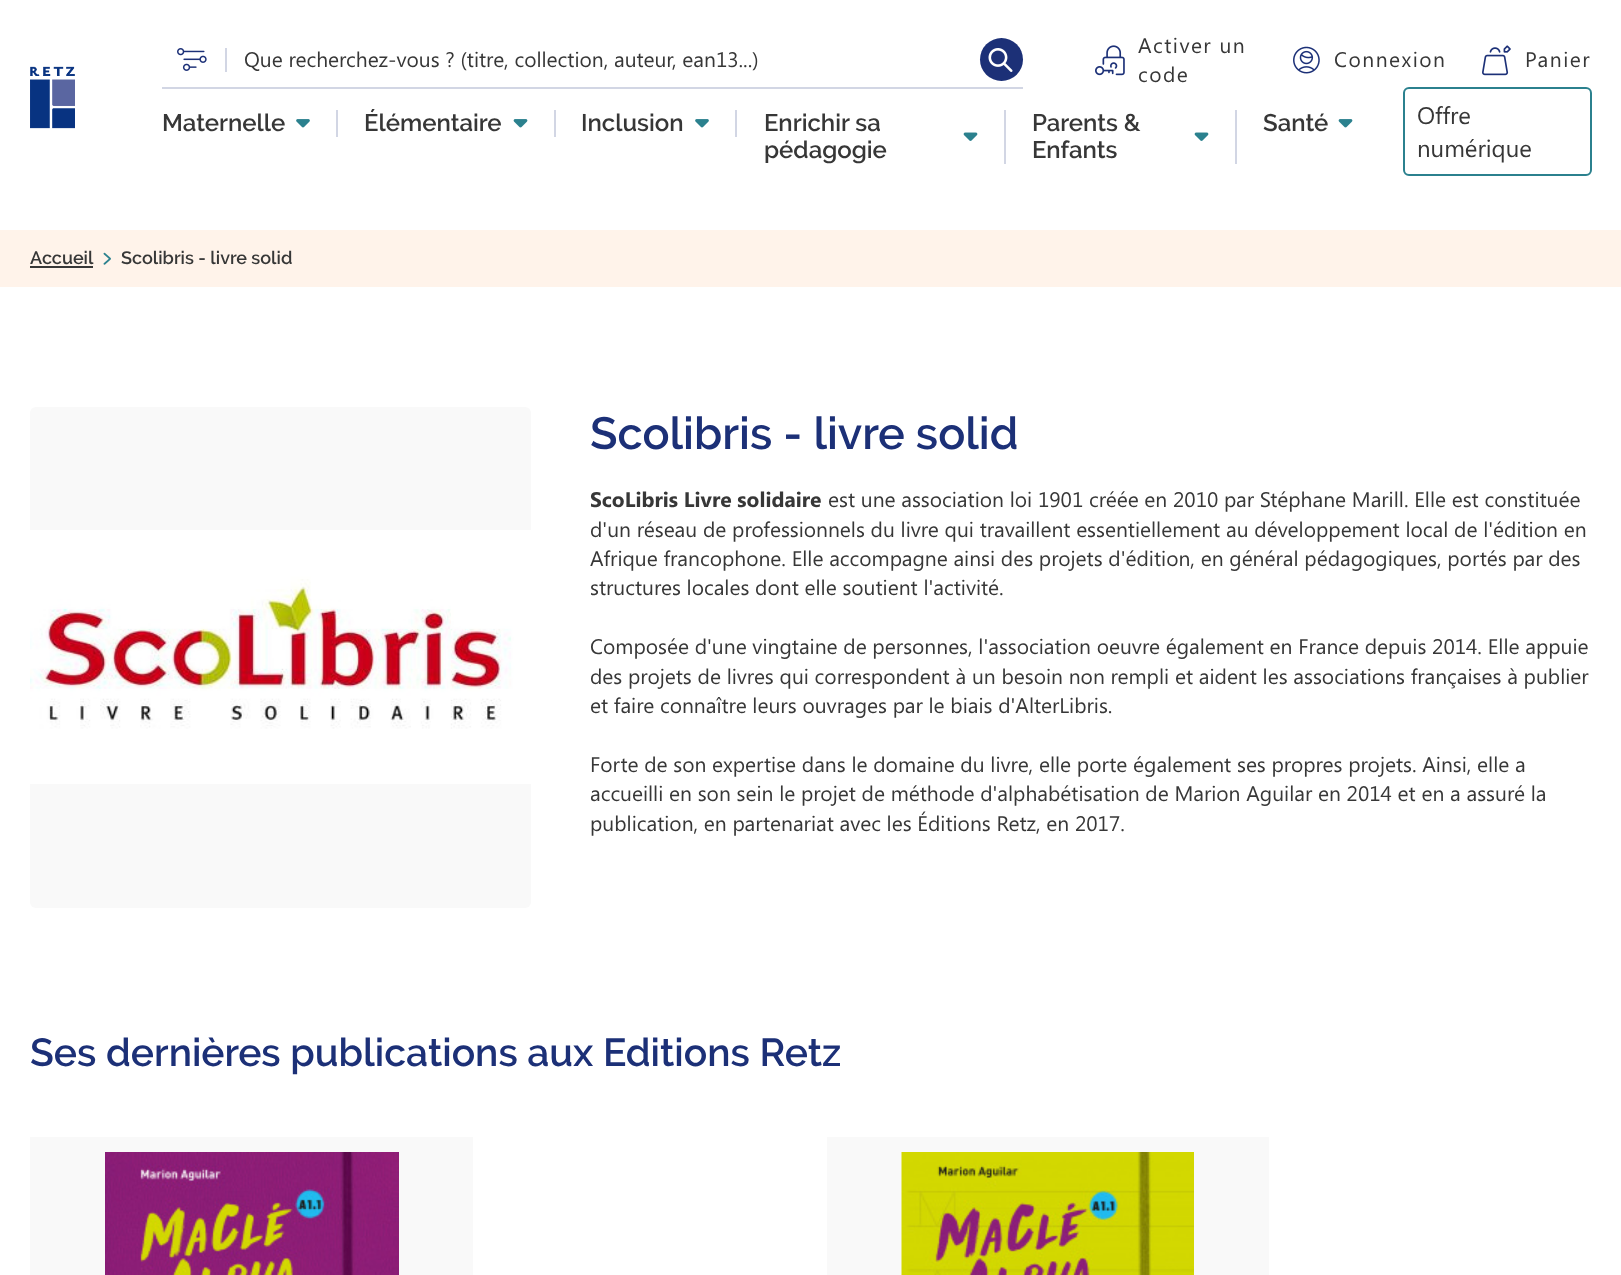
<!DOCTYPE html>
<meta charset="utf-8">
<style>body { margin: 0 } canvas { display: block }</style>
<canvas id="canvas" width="1621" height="1275"></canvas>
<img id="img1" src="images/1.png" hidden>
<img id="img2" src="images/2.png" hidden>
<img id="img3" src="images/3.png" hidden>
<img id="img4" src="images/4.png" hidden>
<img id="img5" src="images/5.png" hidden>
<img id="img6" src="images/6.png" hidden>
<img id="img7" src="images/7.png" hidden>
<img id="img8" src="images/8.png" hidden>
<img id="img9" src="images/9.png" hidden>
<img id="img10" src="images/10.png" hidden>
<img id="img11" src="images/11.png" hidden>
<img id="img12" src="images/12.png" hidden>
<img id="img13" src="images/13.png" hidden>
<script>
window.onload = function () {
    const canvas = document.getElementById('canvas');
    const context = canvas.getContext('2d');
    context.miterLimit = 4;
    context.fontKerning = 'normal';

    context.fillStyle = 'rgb(255, 255, 255)';
    context.fillRect(0, 0, 1621, 1275);
    context.fillStyle = 'rgb(210, 214, 228)';
    context.fillRect(225, 48, 2, 24);
    context.drawImage(document.getElementById('img1'), 177, 48, 30, 23);
    context.fillRect(162, 87, 861, 2);
    context.fillStyle = 'rgb(28, 48, 119)';
    context.beginPath();
    context.arc(1001.5, 59.5, 21.5, 0, 2 * Math.PI);
    context.fill();
    context.drawImage(document.getElementById('img2'), 988, 48, 25, 24);
    context.drawImage(document.getElementById('img3'), 1095, 45, 30, 31);
    context.drawImage(document.getElementById('img4'), 1293, 46, 27, 28);
    context.drawImage(document.getElementById('img5'), 1482, 45, 29, 31);
    context.drawImage(document.getElementById('img6'), 30, 66, 45, 63);
    context.fillStyle = 'rgb(210, 214, 228)';
    context.fillRect(336, 110, 2, 27);
    context.drawImage(document.getElementById('img7'), 296, 119, 14, 9);
    context.fillRect(554, 110, 2, 27);
    context.drawImage(document.getElementById('img8'), 513, 119, 15, 9);
    context.fillRect(735, 110, 2, 27);
    context.drawImage(document.getElementById('img7'), 695, 119, 14, 9);
    context.fillRect(1004, 110, 2, 54);
    context.drawImage(document.getElementById('img9'), 963, 132, 15, 9);
    context.fillRect(1235, 110, 2, 54);
    context.drawImage(document.getElementById('img9'), 1194, 132, 15, 9);
    context.drawImage(document.getElementById('img8'), 1338, 119, 15, 9);
    context.beginPath();
    context.roundRect(1404, 88, 187, 87, 5);
    context.strokeStyle = 'rgb(43, 129, 142)';
    context.lineWidth = 2;
    context.stroke();
    context.fillStyle = 'rgb(255, 243, 234)';
    context.fillRect(0, 230, 1621, 57);
    context.fillStyle = 'rgb(55, 55, 55)';
    context.fillRect(30, 266, 63, 2);
    context.drawImage(document.getElementById('img10'), 103, 252, 8, 13);
    context.fillStyle = 'rgb(249, 249, 249)';
    context.beginPath();
    context.roundRect(30, 407, 501, 501, 6);
    context.fill();
    context.drawImage(document.getElementById('img11'), 30, 530, 501, 254);
    context.fillRect(30, 1137, 443, 138);
    context.drawImage(document.getElementById('img12'), 105, 1152, 294, 123);
    context.fillRect(827, 1137, 442, 138);
    context.drawImage(document.getElementById('img13'), 901, 1152, 293, 123);
    context.font = '21px Segoe UI';
    context.fillStyle = 'rgb(55, 55, 55)';
    context.fillText('Que recherchez-vous ? (titre, collection, auteur, ean13...)', 244, 67);
    context.letterSpacing = '1.5px';
    context.fillText('Activer un', 1138, 53);
    context.fillText('code', 1138, 82);
    context.fillText('Connexion', 1334, 67);
    context.fillText('Panier', 1525, 67);
    context.letterSpacing = '0px';
    context.font = '600 24px Raleway';
    context.fillText('Maternelle', 162, 131);
    context.fillText('Élémentaire', 364, 131);
    context.fillText('Inclusion', 581, 131);
    context.fillText('Enrichir sa', 764, 131);
    context.fillText('pédagogie', 764, 158);
    context.fillText('Parents &', 1032, 131);
    context.fillText('Enfants', 1032, 158);
    context.fillText('Santé', 1263, 131);
    context.font = '24px Segoe UI';
    context.fillText('Offre', 1417, 124);
    context.fillText('numérique', 1417, 157);
    context.font = '600 18px Raleway';
    context.fillText('Accueil', 30, 264);
    context.fillText('Scolibris - livre solid', 121, 264);
    context.font = '600 45px Raleway';
    context.fillStyle = 'rgb(28, 48, 119)';
    context.fillText('Scolibris - livre solid', 590, 449);
    context.font = 'bold 21px Segoe UI';
    context.fillStyle = 'rgb(55, 55, 55)';
    context.fillText('ScoLibris Livre solidaire', 590, 507);
    context.font = '21px Segoe UI';
    context.fillText('est une association loi 1901 créée en 2010 par Stéphane Marill. Elle est constituée', 828, 507);
    context.fillText('d\'un réseau de professionnels du livre qui travaillent essentiellement au développement local de l\'édition en', 590, 537);
    context.fillText('Afrique francophone. Elle accompagne ainsi des projets d\'édition, en général pédagogiques, portés par des', 590, 566);
    context.fillText('structures locales dont elle soutient l\'activité.', 590, 595);
    context.fillText('Composée d\'une vingtaine de personnes, l\'association oeuvre également en France depuis 2014. Elle appuie', 590, 654);
    context.fillText('des projets de livres qui correspondent à un besoin non rempli et aident les associations françaises à publier', 590, 684);
    context.fillText('et faire connaître leurs ouvrages par le biais d\'AlterLibris.', 590, 713);
    context.fillText('Forte de son expertise dans le domaine du livre, elle porte également ses propres projets. Ainsi, elle a', 590, 772);
    context.fillText('accueilli en son sein le projet de méthode d\'alphabétisation de Marion Aguilar en 2014 et en a assuré la', 590, 801);
    context.fillText('publication, en partenariat avec les Éditions Retz, en 2017.', 590, 831);
    context.font = '600 39px Raleway';
    context.fillStyle = 'rgb(28, 48, 119)';
    context.fillText('Ses dernières publications aux Editions Retz', 30, 1066);
};
</script>
